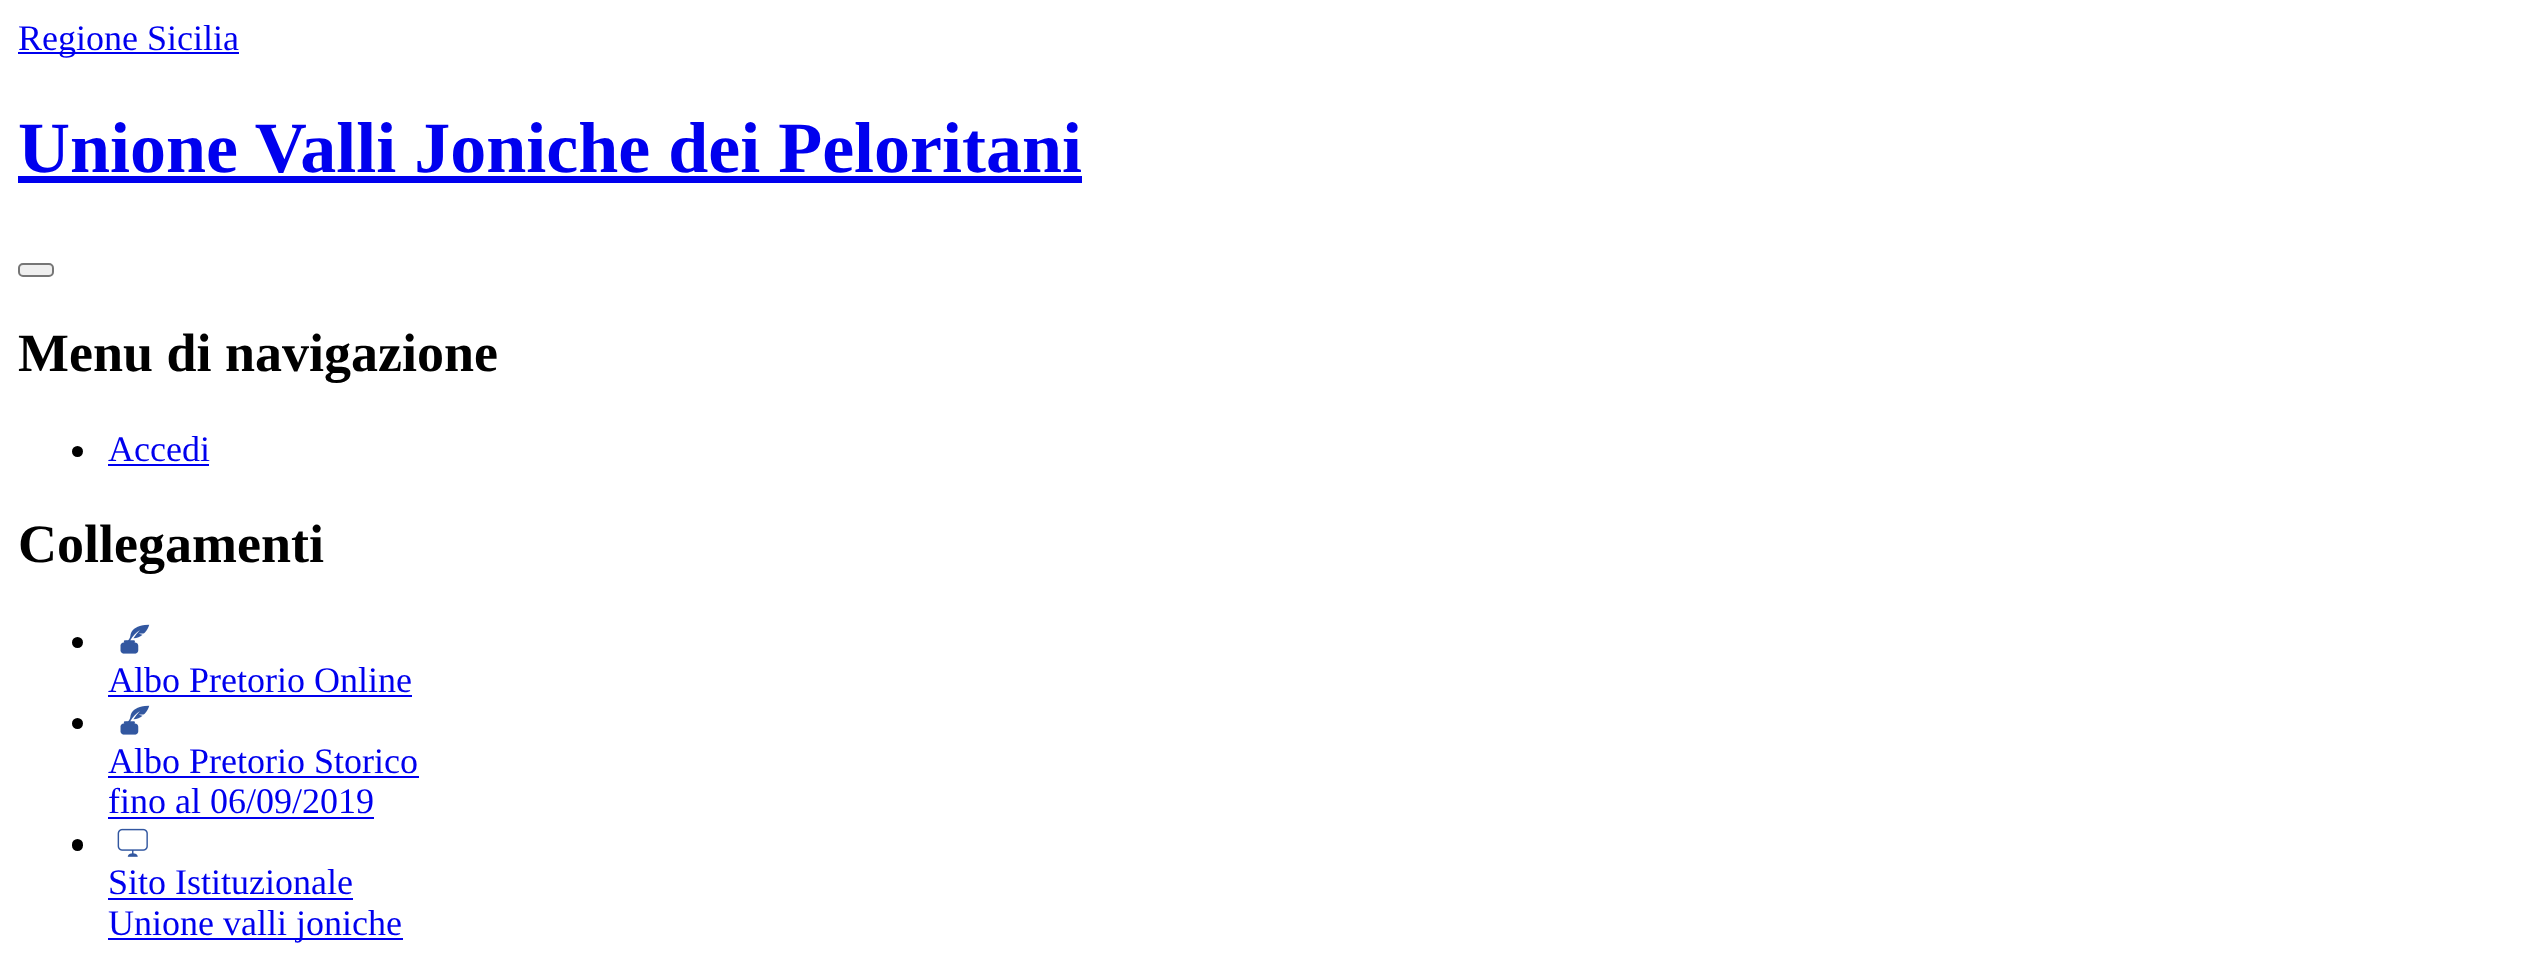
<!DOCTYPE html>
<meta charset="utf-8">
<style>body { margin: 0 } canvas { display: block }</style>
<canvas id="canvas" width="2544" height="954"></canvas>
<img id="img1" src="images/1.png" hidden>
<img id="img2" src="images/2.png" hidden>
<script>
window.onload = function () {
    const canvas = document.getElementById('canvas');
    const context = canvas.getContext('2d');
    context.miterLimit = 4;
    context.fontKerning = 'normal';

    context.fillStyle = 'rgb(255, 255, 255)';
    context.fillRect(0, 0, 2544, 954);
    context.fillStyle = 'rgb(0, 0, 238)';
    context.fillRect(18, 52, 221, 2);
    context.fillRect(18, 176, 1064, 7);
    context.fillStyle = 'rgb(239, 239, 239)';
    context.beginPath();
    context.roundRect(19, 264, 34, 12, 4);
    context.fill();
    context.strokeStyle = 'rgb(118, 118, 118)';
    context.lineWidth = 2;
    context.stroke();
    context.fillStyle = 'rgb(0, 0, 0)';
    context.beginPath();
    context.arc(77.5, 451.5, 5.5, 0, 2 * Math.PI);
    context.fill();
    context.fillStyle = 'rgb(0, 0, 238)';
    context.fillRect(108, 464, 101, 2);
    context.fillStyle = 'rgb(0, 0, 0)';
    context.beginPath();
    context.arc(77.5, 642.5, 5.5, 0, 2 * Math.PI);
    context.fill();
    context.drawImage(document.getElementById('img1'), 120, 624, 30, 30);
    context.fillStyle = 'rgb(0, 0, 238)';
    context.fillRect(108, 695, 304, 2);
    context.fillStyle = 'rgb(0, 0, 0)';
    context.beginPath();
    context.arc(77.5, 723.5, 5.5, 0, 2 * Math.PI);
    context.fill();
    context.drawImage(document.getElementById('img1'), 120, 705, 30, 30);
    context.fillStyle = 'rgb(0, 0, 238)';
    context.fillRect(108, 776, 311, 2);
    context.fillRect(108, 817, 266, 2);
    context.fillStyle = 'rgb(0, 0, 0)';
    context.beginPath();
    context.roundRect(72, 839, 11, 12, 5.5);
    context.fill();
    context.drawImage(document.getElementById('img2'), 117, 828, 31, 29);
    context.fillStyle = 'rgb(0, 0, 238)';
    context.fillRect(108, 898, 245, 2);
    context.fillRect(108, 938, 295, 2);
    context.font = '36px Liberation Serif';
    context.fillText('Regione Sicilia', 18, 50);
    context.font = 'bold 72px Liberation Serif';
    context.fillText('Unione Valli Joniche dei Peloritani', 18, 172);
    context.font = 'bold 54px Liberation Serif';
    context.fillStyle = 'rgb(0, 0, 0)';
    context.fillText('Menu di navigazione', 18, 371);
    context.font = '36px Liberation Serif';
    context.fillStyle = 'rgb(0, 0, 238)';
    context.fillText('Accedi', 108, 461);
    context.font = 'bold 54px Liberation Serif';
    context.fillStyle = 'rgb(0, 0, 0)';
    context.fillText('Collegamenti', 18, 562);
    context.font = '36px Liberation Serif';
    context.fillStyle = 'rgb(0, 0, 238)';
    context.fillText('Albo Pretorio Online', 108, 692);
    context.fillText('Albo Pretorio Storico', 108, 773);
    context.fillText('fino al 06/09/2019', 108, 813);
    context.fillText('Sito Istituzionale', 108, 894);
    context.fillText('Unione valli joniche', 108, 935);
};
</script>
